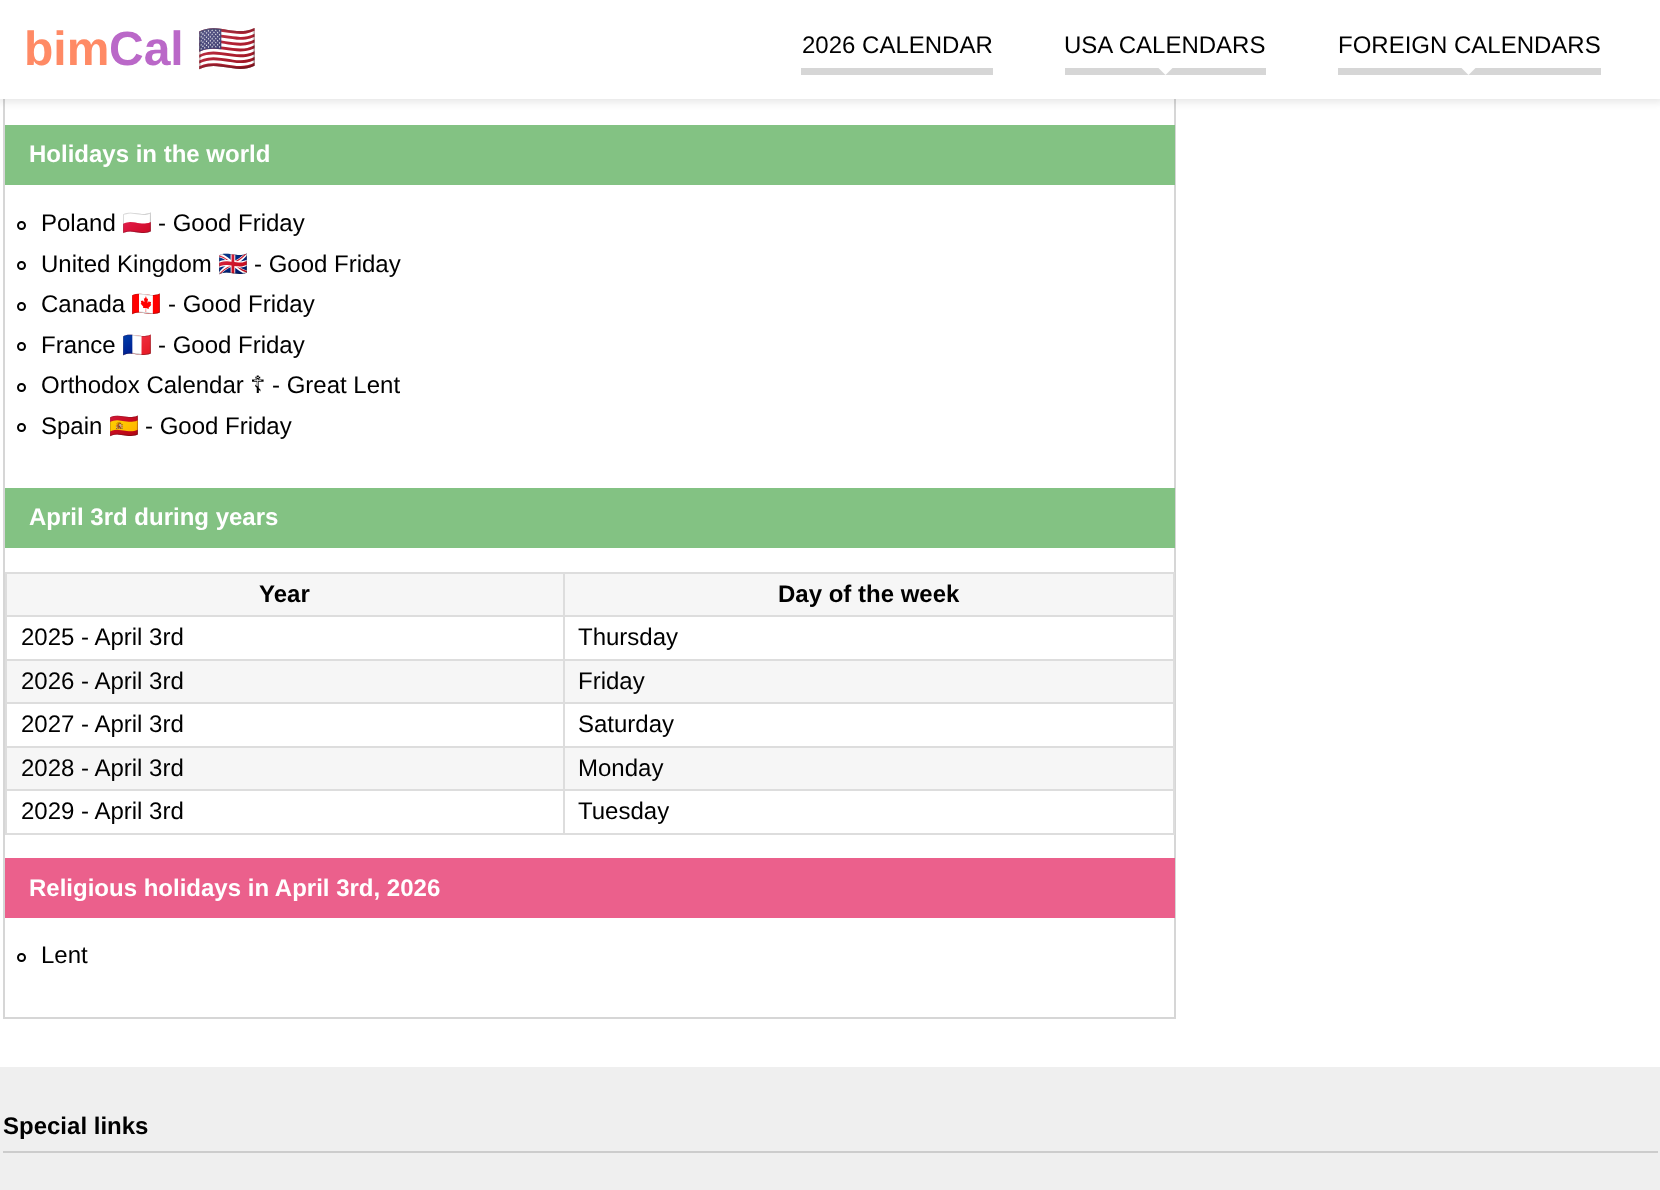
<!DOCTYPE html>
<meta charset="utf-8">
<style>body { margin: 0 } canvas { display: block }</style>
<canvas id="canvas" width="1660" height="1190"></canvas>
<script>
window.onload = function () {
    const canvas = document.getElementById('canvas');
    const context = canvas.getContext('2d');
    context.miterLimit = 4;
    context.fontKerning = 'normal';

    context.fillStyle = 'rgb(255, 255, 255)';
    context.fillRect(0, 0, 1660, 1190);
    context.strokeStyle = 'rgb(214, 214, 214)';
    context.lineWidth = 2;
    context.strokeRect(4, -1, 1171, 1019);
    context.fillStyle = 'rgba(0, 0, 0, 0.1)';
    context.filter = 'blur(4px)';
    context.beginPath();
    context.rect(-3, -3, 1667, 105);
    context.fill();
    context.filter = 'none';
    context.fillStyle = 'rgb(255, 255, 255)';
    context.fillRect(0, 0, 1660, 99);
    context.fillStyle = 'rgb(214, 214, 214)';
    context.fillRect(801, 68, 192, 7);
    context.fillRect(1065, 68, 201, 7);
    context.fillStyle = 'rgb(255, 255, 255)';
    context.beginPath();
    context.moveTo(1158, 67.5);
    context.lineTo(1173, 67.5);
    context.lineTo(1165.5, 75);
    context.closePath();
    context.fill();
    context.fillStyle = 'rgb(214, 214, 214)';
    context.fillRect(1338, 68, 263, 7);
    context.fillStyle = 'rgb(255, 255, 255)';
    context.beginPath();
    context.moveTo(1461, 67.5);
    context.lineTo(1476, 67.5);
    context.lineTo(1468.5, 75);
    context.closePath();
    context.fill();
    context.fillStyle = 'rgb(131, 194, 131)';
    context.fillRect(5, 125, 1170, 60);
    context.beginPath();
    context.arc(21.5, 225.5, 3.5, 0, 2 * Math.PI);
    context.strokeStyle = 'rgb(0, 0, 0)';
    context.stroke();
    context.beginPath();
    context.arc(21.5, 265.5, 3.5, 0, 2 * Math.PI);
    context.stroke();
    context.beginPath();
    context.arc(21.5, 306.5, 3.5, 0, 2 * Math.PI);
    context.stroke();
    context.beginPath();
    context.arc(21.5, 346.5, 3.5, 0, 2 * Math.PI);
    context.stroke();
    context.beginPath();
    context.arc(21.5, 387.5, 3.5, 0, 2 * Math.PI);
    context.stroke();
    context.beginPath();
    context.arc(21.5, 427.5, 3.5, 0, 2 * Math.PI);
    context.stroke();
    context.fillRect(5, 488, 1170, 60);
    context.fillStyle = 'rgb(246, 246, 246)';
    context.fillRect(7, 574, 1166, 41);
    context.fillStyle = 'rgb(221, 221, 221)';
    context.fillRect(563, 572, 612, 2);
    context.fillRect(563, 615, 612, 2);
    context.fillRect(563, 659, 612, 2);
    context.fillStyle = 'rgb(246, 246, 246)';
    context.fillRect(7, 661, 1166, 41);
    context.fillStyle = 'rgb(221, 221, 221)';
    context.fillRect(563, 702, 612, 2);
    context.fillRect(563, 746, 612, 2);
    context.fillStyle = 'rgb(246, 246, 246)';
    context.fillRect(7, 748, 1166, 41);
    context.fillStyle = 'rgb(221, 221, 221)';
    context.fillRect(563, 789, 612, 2);
    context.fillRect(1173, 789, 2, 45);
    context.fillRect(563, 833, 612, 2);
    context.fillRect(563, 789, 2, 45);
    context.fillRect(5, 789, 559, 2);
    context.fillRect(563, 746, 2, 45);
    context.fillRect(5, 746, 559, 2);
    context.fillRect(563, 702, 2, 45);
    context.fillRect(5, 702, 559, 2);
    context.fillRect(563, 659, 2, 45);
    context.fillRect(5, 659, 559, 2);
    context.fillRect(563, 615, 2, 45);
    context.fillRect(5, 615, 559, 2);
    context.fillRect(563, 572, 2, 45);
    context.fillRect(5, 572, 559, 2);
    context.fillRect(5, 833, 559, 2);
    context.fillRect(5, 789, 2, 45);
    context.fillRect(5, 746, 2, 45);
    context.fillRect(5, 702, 2, 45);
    context.fillRect(5, 659, 2, 45);
    context.fillRect(5, 615, 2, 45);
    context.fillRect(5, 572, 2, 45);
    context.fillRect(1173, 746, 2, 45);
    context.fillRect(1173, 702, 2, 45);
    context.fillRect(1173, 659, 2, 45);
    context.fillRect(1173, 615, 2, 45);
    context.fillRect(1173, 572, 2, 45);
    context.fillStyle = 'rgb(235, 96, 140)';
    context.fillRect(5, 858, 1170, 60);
    context.beginPath();
    context.arc(21.5, 957.5, 3.5, 0, 2 * Math.PI);
    context.stroke();
    context.fillStyle = 'rgb(239, 239, 239)';
    context.fillRect(0, 1067, 1660, 123);
    context.fillStyle = 'rgb(204, 204, 204)';
    context.fillRect(3, 1151, 1655, 2);
    context.font = 'bold 48px Liberation Sans';
    context.fillStyle = 'rgb(255, 138, 101)';
    context.fillText('bim', 24, 65);
    context.fillStyle = 'rgb(186, 104, 200)';
    context.fillText('Cal', 109, 65);
    context.font = 'bold 48px Noto Color Emoji';
    context.fillStyle = 'rgb(66, 165, 245)';
    context.fillText('🇺🇸', 197, 65);
    context.font = '24px Liberation Sans';
    context.fillStyle = 'rgb(0, 0, 0)';
    context.fillText('2026 CALENDAR', 802, 53);
    context.fillText('USA CALENDARS', 1064, 53);
    context.fillText('FOREIGN CALENDARS', 1338, 53);
    context.font = 'bold 24px Liberation Sans';
    context.fillStyle = 'rgb(255, 255, 255)';
    context.fillText('Holidays in the world', 29, 162);
    context.font = '24px Liberation Sans';
    context.fillStyle = 'rgb(0, 0, 0)';
    context.fillText('Poland', 41, 231);
    context.font = '24px Noto Color Emoji';
    context.fillText('🇵🇱', 122, 231);
    context.font = '24px Liberation Sans';
    context.fillText('- Good Friday', 158, 231);
    context.fillText('United Kingdom', 41, 272);
    context.font = '24px Noto Color Emoji';
    context.fillText('🇬🇧', 218, 272);
    context.font = '24px Liberation Sans';
    context.fillText('- Good Friday', 254, 272);
    context.fillText('Canada', 41, 312);
    context.font = '24px Noto Color Emoji';
    context.fillText('🇨🇦', 131, 312);
    context.font = '24px Liberation Sans';
    context.fillText('- Good Friday', 168, 312);
    context.fillText('France', 41, 353);
    context.font = '24px Noto Color Emoji';
    context.fillText('🇫🇷', 122, 353);
    context.font = '24px Liberation Sans';
    context.fillText('- Good Friday', 158, 353);
    context.fillText('Orthodox Calendar', 41, 393);
    context.font = '24px DejaVu Sans';
    context.fillText('☦', 250, 393);
    context.font = '24px Liberation Sans';
    context.fillText('- Great Lent', 272, 393);
    context.fillText('Spain', 41, 434);
    context.font = '24px Noto Color Emoji';
    context.fillText('🇪🇸', 109, 434);
    context.font = '24px Liberation Sans';
    context.fillText('- Good Friday', 145, 434);
    context.font = 'bold 24px Liberation Sans';
    context.fillStyle = 'rgb(255, 255, 255)';
    context.fillText('April 3rd during years', 29, 525);
    context.fillStyle = 'rgb(0, 0, 0)';
    context.fillText('Year', 259, 602);
    context.fillText('Day of the week', 778, 602);
    context.font = '24px Liberation Sans';
    context.fillText('2025 - April 3rd', 21, 645);
    context.fillText('Thursday', 578, 645);
    context.fillText('2026 - April 3rd', 21, 689);
    context.fillText('Friday', 578, 689);
    context.fillText('2027 - April 3rd', 21, 732);
    context.fillText('Saturday', 578, 732);
    context.fillText('2028 - April 3rd', 21, 776);
    context.fillText('Monday', 578, 776);
    context.fillText('2029 - April 3rd', 21, 819);
    context.fillText('Tuesday', 578, 819);
    context.font = 'bold 24px Liberation Sans';
    context.fillStyle = 'rgb(255, 255, 255)';
    context.fillText('Religious holidays in April 3rd, 2026', 29, 896);
    context.font = '24px Liberation Sans';
    context.fillStyle = 'rgb(0, 0, 0)';
    context.fillText('Lent', 41, 963);
    context.font = 'bold 24px Liberation Sans';
    context.fillText('Special links', 3, 1134);
};
</script>
